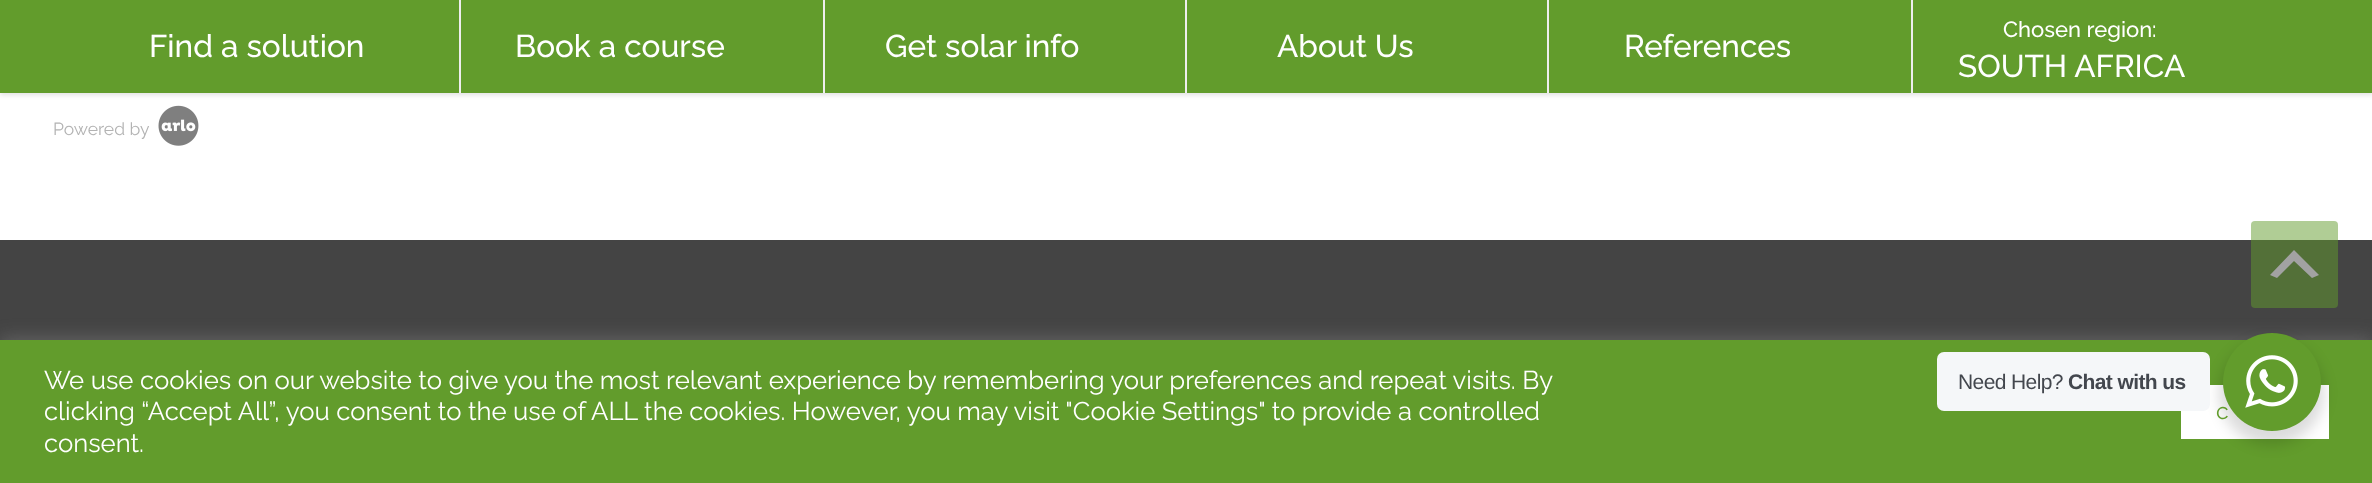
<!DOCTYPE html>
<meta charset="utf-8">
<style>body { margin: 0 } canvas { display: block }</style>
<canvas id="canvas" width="2372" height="483"></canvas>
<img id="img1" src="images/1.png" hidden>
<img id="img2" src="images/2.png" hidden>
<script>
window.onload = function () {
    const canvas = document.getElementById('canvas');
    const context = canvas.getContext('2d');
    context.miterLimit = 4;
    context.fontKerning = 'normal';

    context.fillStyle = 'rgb(255, 255, 255)';
    context.fillRect(0, 0, 2372, 483);
    context.fillStyle = 'rgba(0, 0, 0, 0.12)';
    context.filter = 'blur(2.5px)';
    context.beginPath();
    context.rect(0, 2, 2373, 93);
    context.fill();
    context.filter = 'none';
    context.fillStyle = 'rgb(98, 156, 44)';
    context.fillRect(0, 0, 2372, 93);
    context.fillStyle = 'rgb(238, 238, 238)';
    context.fillRect(459, 0, 2, 93);
    context.fillRect(823, 0, 2, 93);
    context.fillRect(1185, 0, 2, 93);
    context.fillRect(1547, 0, 2, 93);
    context.fillRect(1911, 0, 2, 93);
    context.drawImage(document.getElementById('img1'), 158, 105, 41, 41);
    context.fillStyle = 'rgb(68, 68, 68)';
    context.fillRect(0, 240, 2372, 100);
    context.fillStyle = 'rgba(98, 156, 44, 0.5)';
    context.beginPath();
    context.roundRect(2251, 221, 87, 87, 4);
    context.fill();
    context.fillStyle = 'rgb(162, 162, 162)';
    context.beginPath();
    context.moveTo(2312, 278);
    context.lineTo(2294, 261);
    context.lineTo(2277, 278);
    context.lineTo(2270, 275);
    context.lineTo(2294, 250);
    context.lineTo(2319, 275);
    context.closePath();
    context.fill();
    context.fillStyle = 'rgba(172, 171, 171, 0.3)';
    context.filter = 'blur(9px)';
    context.beginPath();
    context.rect(0, 338, 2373, 143);
    context.fill();
    context.filter = 'none';
    context.fillStyle = 'rgb(98, 156, 44)';
    context.fillRect(0, 340, 2372, 143);
    context.fillStyle = 'rgb(255, 255, 255)';
    context.fillRect(2181, 385, 148, 54);
    context.fillStyle = 'rgba(0, 0, 0, 0.14)';
    context.filter = 'blur(7px)';
    context.beginPath();
    context.roundRect(2219, 340, 105, 105, 52.5);
    context.fill();
    context.filter = 'none';
    context.fillStyle = 'rgb(245, 247, 249)';
    context.beginPath();
    context.roundRect(1937, 352, 273, 59, 7);
    context.fill();
    context.fillStyle = 'rgb(98, 156, 44)';
    context.beginPath();
    context.arc(2272, 382, 49, 0, 2 * Math.PI);
    context.fill();
    context.drawImage(document.getElementById('img2'), 2245, 355, 53, 53);
    context.font = '500 31.5px Raleway';
    context.fillStyle = 'rgb(255, 255, 255)';
    context.fillText('Find a solution', 149, 57);
    context.fillText('Book a course', 515, 57);
    context.fillText('Get solar info', 885, 57);
    context.fillText('About Us', 1277, 57);
    context.fillText('References', 1624, 57);
    context.font = '500 22px Raleway';
    context.fillText('Chosen region:', 2003, 37);
    context.font = '500 31.5px Raleway';
    context.fillText('SOUTH AFRICA', 1958, 77);
    context.font = '17.5px Raleway';
    context.fillStyle = 'rgb(179, 179, 179)';
    context.fillText('Powered by', 53, 135);
    context.font = '25.67px Raleway';
    context.fillStyle = 'rgb(255, 255, 255)';
    context.fillText('We use cookies on our website to give you the most relevant experience by remembering your preferences and repeat visits. By', 44, 389);
    context.fillText('clicking “Accept All”, you consent to the use of ALL the cookies. However, you may visit "Cookie Settings" to provide a controlled', 44, 420);
    context.fillText('consent.', 44, 452);
    context.font = '23px Raleway';
    context.fillStyle = 'rgb(98, 156, 44)';
    context.fillText('c', 2216, 419);
    context.letterSpacing = '-0.6px';
    context.font = '21px Liberation Sans';
    context.fillStyle = 'rgb(67, 71, 78)';
    context.fillText('Need Help?', 1958, 389);
    context.font = 'bold 21px Liberation Sans';
    context.fillText('Chat with us', 2068, 389);
};
</script>
